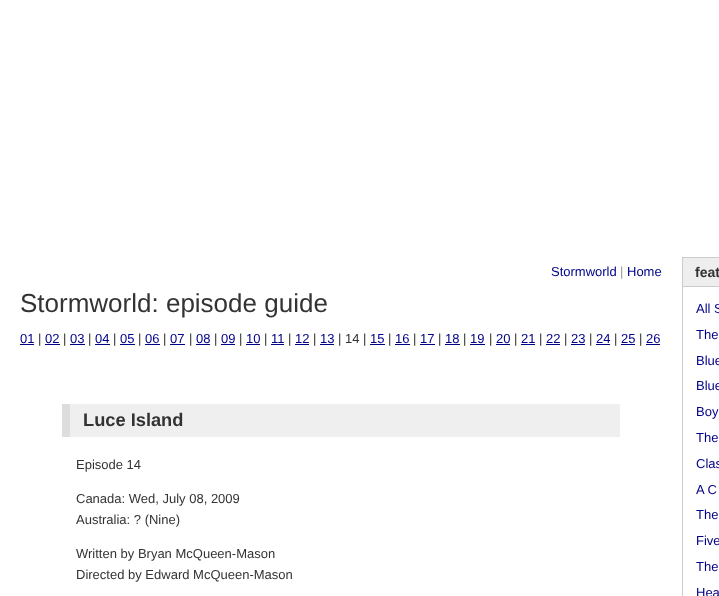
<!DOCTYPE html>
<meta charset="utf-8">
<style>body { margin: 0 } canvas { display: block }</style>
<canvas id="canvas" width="719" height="596"></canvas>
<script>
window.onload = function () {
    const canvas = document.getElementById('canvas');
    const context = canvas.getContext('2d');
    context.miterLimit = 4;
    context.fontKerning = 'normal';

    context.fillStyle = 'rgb(255, 255, 255)';
    context.fillRect(0, 0, 719, 596);
    context.fillStyle = 'rgb(0, 0, 136)';
    context.fillRect(20, 344, 14, 1);
    context.fillRect(45, 344, 15, 1);
    context.fillRect(70, 344, 15, 1);
    context.fillRect(95, 344, 15, 1);
    context.fillRect(120, 344, 15, 1);
    context.fillRect(145, 344, 15, 1);
    context.fillRect(170, 344, 15, 1);
    context.fillRect(196, 344, 14, 1);
    context.fillRect(221, 344, 14, 1);
    context.fillRect(246, 344, 14, 1);
    context.fillRect(271, 344, 13, 1);
    context.fillRect(295, 344, 14, 1);
    context.fillRect(320, 344, 14, 1);
    context.fillRect(370, 344, 15, 1);
    context.fillRect(395, 344, 15, 1);
    context.fillRect(420, 344, 15, 1);
    context.fillRect(445, 344, 15, 1);
    context.fillRect(470, 344, 15, 1);
    context.fillRect(496, 344, 14, 1);
    context.fillRect(521, 344, 14, 1);
    context.fillRect(546, 344, 14, 1);
    context.fillRect(571, 344, 14, 1);
    context.fillRect(596, 344, 14, 1);
    context.fillRect(621, 344, 14, 1);
    context.fillRect(646, 344, 14, 1);
    context.fillStyle = 'rgb(239, 239, 239)';
    context.fillRect(70, 404, 550, 33);
    context.fillStyle = 'rgb(221, 221, 221)';
    context.fillRect(62, 404, 8, 33);
    context.strokeStyle = 'rgb(204, 204, 204)';
    context.strokeRect(682.5, 257.5, 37, 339);
    context.fillStyle = 'rgb(238, 238, 238)';
    context.fillRect(683, 258, 36, 28);
    context.fillStyle = 'rgb(204, 204, 204)';
    context.fillRect(683, 286, 36, 1);
    context.font = '13px Liberation Sans';
    context.fillStyle = 'rgb(0, 0, 136)';
    context.fillText('Stormworld', 551, 276);
    context.fillStyle = 'rgb(153, 153, 153)';
    context.fillText('|', 620, 276);
    context.fillStyle = 'rgb(0, 0, 136)';
    context.fillText('Home', 627, 276);
    context.font = '26px Liberation Sans';
    context.fillStyle = 'rgb(51, 51, 51)';
    context.fillText('Stormworld: episode guide', 20, 312);
    context.font = '13px Liberation Sans';
    context.fillStyle = 'rgb(0, 0, 136)';
    context.fillText('01', 20, 343);
    context.fillStyle = 'rgb(51, 51, 51)';
    context.fillText('|', 38, 343);
    context.fillStyle = 'rgb(0, 0, 136)';
    context.fillText('02', 45, 343);
    context.fillStyle = 'rgb(51, 51, 51)';
    context.fillText('|', 63, 343);
    context.fillStyle = 'rgb(0, 0, 136)';
    context.fillText('03', 70, 343);
    context.fillStyle = 'rgb(51, 51, 51)';
    context.fillText('|', 88, 343);
    context.fillStyle = 'rgb(0, 0, 136)';
    context.fillText('04', 95, 343);
    context.fillStyle = 'rgb(51, 51, 51)';
    context.fillText('|', 113, 343);
    context.fillStyle = 'rgb(0, 0, 136)';
    context.fillText('05', 120, 343);
    context.fillStyle = 'rgb(51, 51, 51)';
    context.fillText('|', 138, 343);
    context.fillStyle = 'rgb(0, 0, 136)';
    context.fillText('06', 145, 343);
    context.fillStyle = 'rgb(51, 51, 51)';
    context.fillText('|', 163, 343);
    context.fillStyle = 'rgb(0, 0, 136)';
    context.fillText('07', 170, 343);
    context.fillStyle = 'rgb(51, 51, 51)';
    context.fillText('|', 189, 343);
    context.fillStyle = 'rgb(0, 0, 136)';
    context.fillText('08', 196, 343);
    context.fillStyle = 'rgb(51, 51, 51)';
    context.fillText('|', 214, 343);
    context.fillStyle = 'rgb(0, 0, 136)';
    context.fillText('09', 221, 343);
    context.fillStyle = 'rgb(51, 51, 51)';
    context.fillText('|', 239, 343);
    context.fillStyle = 'rgb(0, 0, 136)';
    context.fillText('10', 246, 343);
    context.fillStyle = 'rgb(51, 51, 51)';
    context.fillText('|', 264, 343);
    context.fillStyle = 'rgb(0, 0, 136)';
    context.fillText('11', 271, 343);
    context.fillStyle = 'rgb(51, 51, 51)';
    context.fillText('|', 288, 343);
    context.fillStyle = 'rgb(0, 0, 136)';
    context.fillText('12', 295, 343);
    context.fillStyle = 'rgb(51, 51, 51)';
    context.fillText('|', 313, 343);
    context.fillStyle = 'rgb(0, 0, 136)';
    context.fillText('13', 320, 343);
    context.fillStyle = 'rgb(51, 51, 51)';
    context.fillText('| 14 |', 338, 343);
    context.fillStyle = 'rgb(0, 0, 136)';
    context.fillText('15', 370, 343);
    context.fillStyle = 'rgb(51, 51, 51)';
    context.fillText('|', 388, 343);
    context.fillStyle = 'rgb(0, 0, 136)';
    context.fillText('16', 395, 343);
    context.fillStyle = 'rgb(51, 51, 51)';
    context.fillText('|', 413, 343);
    context.fillStyle = 'rgb(0, 0, 136)';
    context.fillText('17', 420, 343);
    context.fillStyle = 'rgb(51, 51, 51)';
    context.fillText('|', 438, 343);
    context.fillStyle = 'rgb(0, 0, 136)';
    context.fillText('18', 445, 343);
    context.fillStyle = 'rgb(51, 51, 51)';
    context.fillText('|', 463, 343);
    context.fillStyle = 'rgb(0, 0, 136)';
    context.fillText('19', 470, 343);
    context.fillStyle = 'rgb(51, 51, 51)';
    context.fillText('|', 489, 343);
    context.fillStyle = 'rgb(0, 0, 136)';
    context.fillText('20', 496, 343);
    context.fillStyle = 'rgb(51, 51, 51)';
    context.fillText('|', 514, 343);
    context.fillStyle = 'rgb(0, 0, 136)';
    context.fillText('21', 521, 343);
    context.fillStyle = 'rgb(51, 51, 51)';
    context.fillText('|', 539, 343);
    context.fillStyle = 'rgb(0, 0, 136)';
    context.fillText('22', 546, 343);
    context.fillStyle = 'rgb(51, 51, 51)';
    context.fillText('|', 564, 343);
    context.fillStyle = 'rgb(0, 0, 136)';
    context.fillText('23', 571, 343);
    context.fillStyle = 'rgb(51, 51, 51)';
    context.fillText('|', 589, 343);
    context.fillStyle = 'rgb(0, 0, 136)';
    context.fillText('24', 596, 343);
    context.fillStyle = 'rgb(51, 51, 51)';
    context.fillText('|', 614, 343);
    context.fillStyle = 'rgb(0, 0, 136)';
    context.fillText('25', 621, 343);
    context.fillStyle = 'rgb(51, 51, 51)';
    context.fillText('|', 639, 343);
    context.fillStyle = 'rgb(0, 0, 136)';
    context.fillText('26', 646, 343);
    context.font = 'bold 18.25px Liberation Sans';
    context.fillStyle = 'rgb(51, 51, 51)';
    context.fillText('Luce Island', 83, 426);
    context.font = '13px Liberation Sans';
    context.fillText('Episode 14', 76, 469);
    context.fillText('Canada: Wed, July 08, 2009', 76, 503);
    context.fillText('Australia: ? (Nine)', 76, 524);
    context.fillText('Written by Bryan McQueen-Mason', 76, 558);
    context.fillText('Directed by Edward McQueen-Mason', 76, 579);
    context.font = 'bold 14px Liberation Sans';
    context.fillText('feat', 695, 277);
    context.font = '13px Liberation Sans';
    context.fillStyle = 'rgb(0, 0, 136)';
    context.fillText('All S', 696, 313);
    context.fillText('The', 696, 339);
    context.fillText('Blue', 696, 365);
    context.fillText('Blue', 696, 390);
    context.fillText('Boy', 696, 416);
    context.fillText('The', 696, 442);
    context.fillText('Clas', 696, 468);
    context.fillText('A C', 696, 494);
    context.fillText('The', 696, 519);
    context.fillText('Five', 696, 545);
    context.fillText('The', 696, 571);
    context.fillText('Hea', 696, 597);
};
</script>
